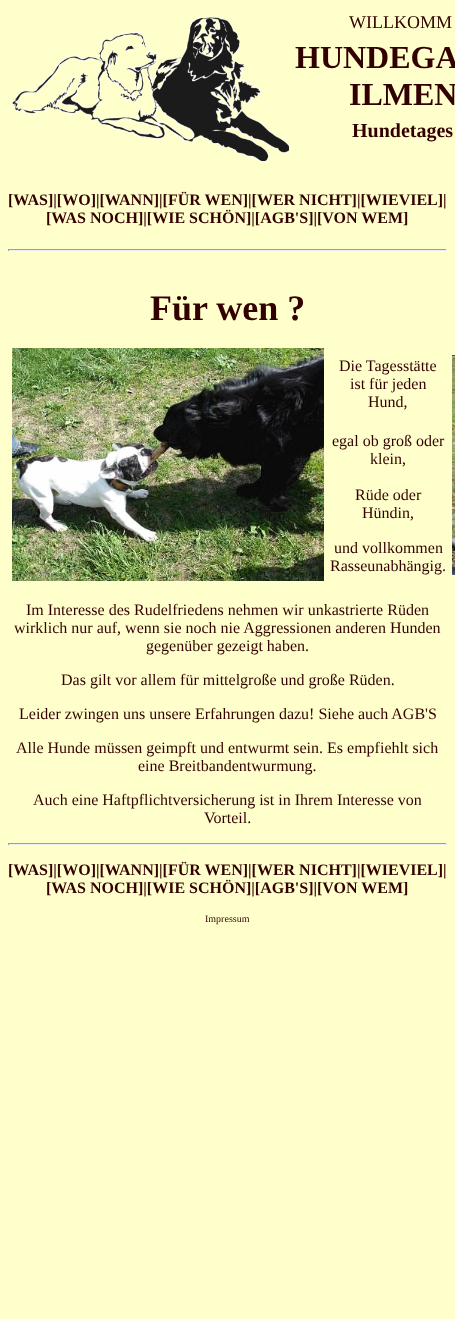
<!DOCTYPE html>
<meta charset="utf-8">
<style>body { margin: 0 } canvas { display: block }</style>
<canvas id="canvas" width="455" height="1319"></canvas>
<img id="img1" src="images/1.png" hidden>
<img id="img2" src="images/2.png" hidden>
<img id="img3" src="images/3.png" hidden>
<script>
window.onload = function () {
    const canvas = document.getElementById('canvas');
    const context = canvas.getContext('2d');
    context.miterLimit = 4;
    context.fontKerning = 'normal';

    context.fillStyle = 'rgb(255, 255, 204)';
    context.fillRect(0, 0, 455, 1319);
    context.drawImage(document.getElementById('img1'), 12, 17, 277, 144);
    context.fillStyle = 'rgb(159, 159, 159)';
    context.fillRect(8, 249, 439, 1);
    context.fillStyle = 'rgb(238, 238, 238)';
    context.fillRect(446, 249, 1, 2);
    context.fillRect(8, 250, 439, 1);
    context.fillStyle = 'rgb(159, 159, 159)';
    context.fillRect(8, 249, 1, 2);
    context.drawImage(document.getElementById('img2'), 12, 348, 312, 233);
    context.drawImage(document.getElementById('img3'), 452, 355, 3, 220);
    context.fillRect(8, 843, 439, 1);
    context.fillStyle = 'rgb(238, 238, 238)';
    context.fillRect(446, 843, 1, 2);
    context.fillRect(8, 844, 439, 1);
    context.fillStyle = 'rgb(159, 159, 159)';
    context.fillRect(8, 843, 1, 2);
    context.font = '18px Liberation Serif';
    context.fillStyle = 'rgb(51, 0, 0)';
    context.fillText('WILLKOMM', 349, 28);
    context.font = 'bold 32px Liberation Serif';
    context.fillText('HUNDEGA', 295, 68);
    context.fillText('ILMEN', 349, 105);
    context.font = 'bold 20px Liberation Serif';
    context.fillText('Hundetages', 352, 137);
    context.font = 'bold 16px Liberation Serif';
    context.fillText('[WAS]|[WO]|[WANN]|[FÜR WEN]|[WER NICHT]|[WIEVIEL]|', 8, 205);
    context.fillText('[WAS NOCH]|[WIE SCHÖN]|[AGB\'S]|[VON WEM]', 46, 223);
    context.font = 'bold 36px Liberation Serif';
    context.fillText('Für wen ?', 150, 320);
    context.font = '16px Liberation Serif';
    context.fillText('Die Tagesstätte', 339, 371);
    context.fillText('ist für jeden', 350, 389);
    context.fillText('Hund,', 368, 407);
    context.fillText('egal ob groß oder', 332, 446);
    context.fillText('klein,', 370, 464);
    context.fillText('Rüde oder', 355, 500);
    context.fillText('Hündin,', 362, 518);
    context.fillText('und vollkommen', 334, 553);
    context.fillText('Rasseunabhängig.', 330, 571);
    context.fillText('Im Interesse des Rudelfriedens nehmen wir unkastrierte Rüden', 26, 615);
    context.fillText('wirklich nur auf, wenn sie noch nie Aggressionen anderen Hunden', 14, 633);
    context.fillText('gegenüber gezeigt haben.', 146, 651);
    context.fillText('Das gilt vor allem für mittelgroße und große Rüden.', 61, 685);
    context.fillText('Leider zwingen uns unsere Erfahrungen dazu! Siehe auch AGB\'S', 19, 719);
    context.fillText('Alle Hunde müssen geimpft und entwurmt sein. Es empfiehlt sich', 16, 753);
    context.fillText('eine Breitbandentwurmung.', 138, 771);
    context.fillText('Auch eine Haftpflichtversicherung ist in Ihrem Interesse von', 33, 805);
    context.fillText('Vorteil.', 204, 823);
    context.font = 'bold 16px Liberation Serif';
    context.fillText('[WAS]|[WO]|[WANN]|[FÜR WEN]|[WER NICHT]|[WIEVIEL]|', 8, 875);
    context.fillText('[WAS NOCH]|[WIE SCHÖN]|[AGB\'S]|[VON WEM]', 46, 893);
    context.font = '10px Liberation Serif';
    context.fillText('Impressum', 205, 922);
};
</script>
